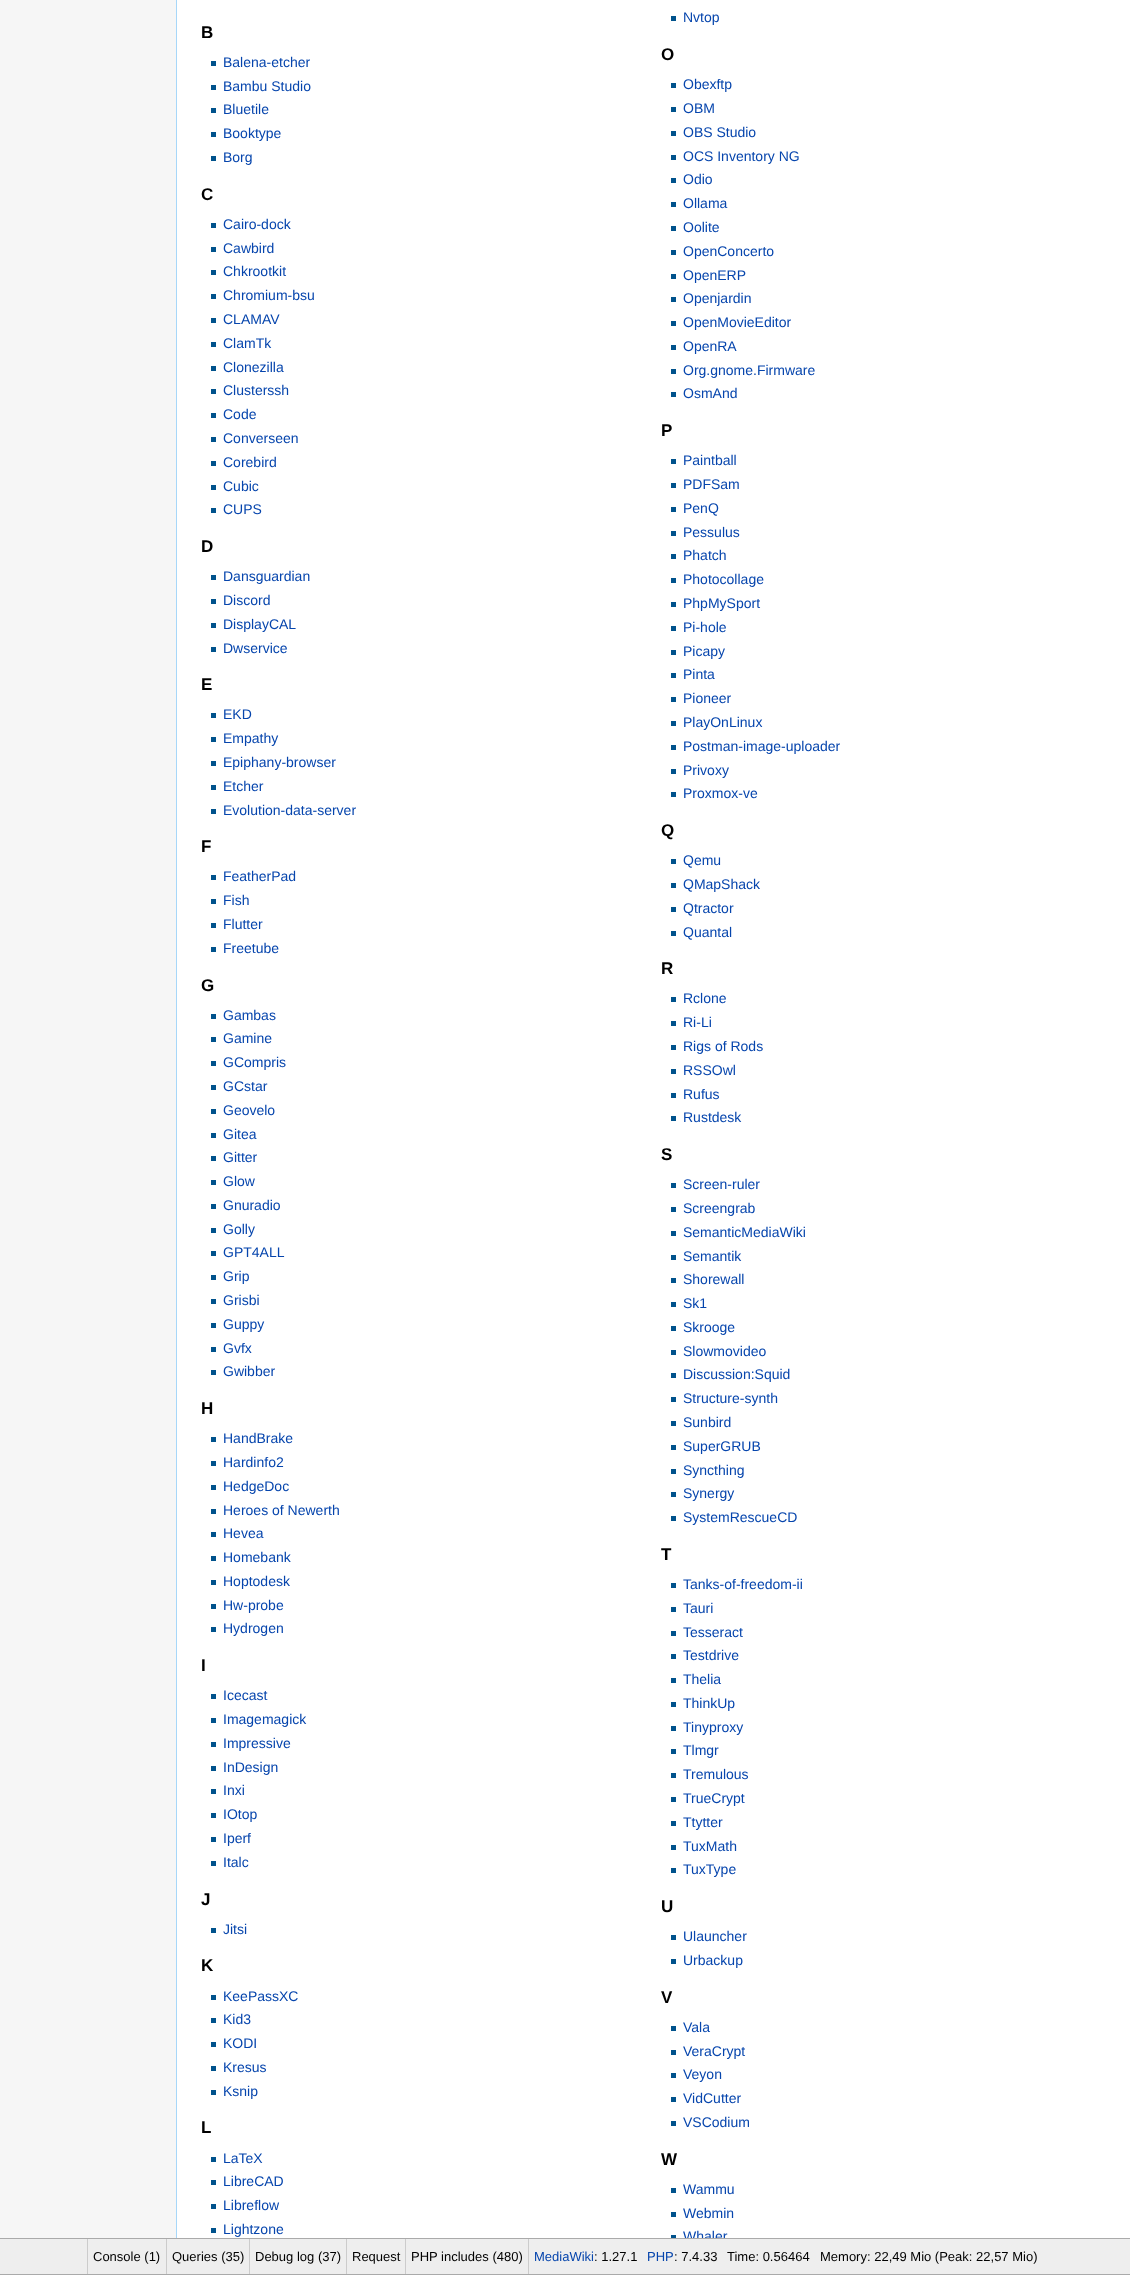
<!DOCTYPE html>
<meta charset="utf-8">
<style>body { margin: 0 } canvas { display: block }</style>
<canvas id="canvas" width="1130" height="2275"></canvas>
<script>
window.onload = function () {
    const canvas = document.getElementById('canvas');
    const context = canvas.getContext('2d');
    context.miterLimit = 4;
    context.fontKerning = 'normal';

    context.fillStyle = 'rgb(246, 246, 246)';
    context.fillRect(0, 0, 1130, 2275);
    context.fillStyle = 'rgb(255, 255, 255)';
    context.fillRect(177, 0, 953, 2238);
    context.fillStyle = 'rgb(167, 215, 249)';
    context.fillRect(176, 0, 1, 2238);
    context.fillStyle = 'rgb(0, 82, 140)';
    context.fillRect(671, 16, 5, 5);
    context.fillRect(211, 61, 5, 5);
    context.fillRect(211, 85, 5, 5);
    context.fillRect(211, 108, 5, 5);
    context.fillRect(211, 132, 5, 5);
    context.fillRect(211, 156, 5, 5);
    context.fillRect(671, 83, 5, 5);
    context.fillRect(671, 107, 5, 5);
    context.fillRect(671, 131, 5, 5);
    context.fillRect(671, 155, 5, 5);
    context.fillRect(671, 178, 5, 5);
    context.fillRect(671, 202, 5, 5);
    context.fillRect(671, 226, 5, 5);
    context.fillRect(671, 250, 5, 5);
    context.fillRect(671, 274, 5, 5);
    context.fillRect(671, 297, 5, 5);
    context.fillRect(671, 321, 5, 5);
    context.fillRect(671, 345, 5, 5);
    context.fillRect(671, 369, 5, 5);
    context.fillRect(671, 392, 5, 5);
    context.fillRect(211, 223, 5, 5);
    context.fillRect(211, 247, 5, 5);
    context.fillRect(211, 270, 5, 5);
    context.fillRect(211, 294, 5, 5);
    context.fillRect(211, 318, 5, 5);
    context.fillRect(211, 342, 5, 5);
    context.fillRect(211, 366, 5, 5);
    context.fillRect(211, 389, 5, 5);
    context.fillRect(211, 413, 5, 5);
    context.fillRect(211, 437, 5, 5);
    context.fillRect(211, 461, 5, 5);
    context.fillRect(211, 485, 5, 5);
    context.fillRect(211, 508, 5, 5);
    context.fillRect(211, 575, 5, 5);
    context.fillRect(211, 599, 5, 5);
    context.fillRect(211, 623, 5, 5);
    context.fillRect(211, 647, 5, 5);
    context.fillRect(671, 459, 5, 5);
    context.fillRect(671, 483, 5, 5);
    context.fillRect(671, 507, 5, 5);
    context.fillRect(671, 531, 5, 5);
    context.fillRect(671, 554, 5, 5);
    context.fillRect(671, 578, 5, 5);
    context.fillRect(671, 602, 5, 5);
    context.fillRect(671, 626, 5, 5);
    context.fillRect(671, 650, 5, 5);
    context.fillRect(671, 673, 5, 5);
    context.fillRect(671, 697, 5, 5);
    context.fillRect(671, 721, 5, 5);
    context.fillRect(671, 745, 5, 5);
    context.fillRect(671, 769, 5, 5);
    context.fillRect(671, 792, 5, 5);
    context.fillRect(211, 713, 5, 5);
    context.fillRect(211, 737, 5, 5);
    context.fillRect(211, 761, 5, 5);
    context.fillRect(211, 785, 5, 5);
    context.fillRect(211, 809, 5, 5);
    context.fillRect(211, 875, 5, 5);
    context.fillRect(211, 899, 5, 5);
    context.fillRect(211, 923, 5, 5);
    context.fillRect(211, 947, 5, 5);
    context.fillRect(671, 859, 5, 5);
    context.fillRect(671, 883, 5, 5);
    context.fillRect(671, 907, 5, 5);
    context.fillRect(671, 931, 5, 5);
    context.fillRect(211, 1014, 5, 5);
    context.fillRect(211, 1037, 5, 5);
    context.fillRect(211, 1061, 5, 5);
    context.fillRect(211, 1085, 5, 5);
    context.fillRect(211, 1109, 5, 5);
    context.fillRect(211, 1133, 5, 5);
    context.fillRect(211, 1156, 5, 5);
    context.fillRect(211, 1180, 5, 5);
    context.fillRect(211, 1204, 5, 5);
    context.fillRect(211, 1228, 5, 5);
    context.fillRect(211, 1251, 5, 5);
    context.fillRect(211, 1275, 5, 5);
    context.fillRect(211, 1299, 5, 5);
    context.fillRect(211, 1323, 5, 5);
    context.fillRect(211, 1347, 5, 5);
    context.fillRect(211, 1370, 5, 5);
    context.fillRect(671, 997, 5, 5);
    context.fillRect(671, 1021, 5, 5);
    context.fillRect(671, 1045, 5, 5);
    context.fillRect(671, 1069, 5, 5);
    context.fillRect(671, 1093, 5, 5);
    context.fillRect(671, 1116, 5, 5);
    context.fillRect(211, 1437, 5, 5);
    context.fillRect(211, 1461, 5, 5);
    context.fillRect(211, 1485, 5, 5);
    context.fillRect(211, 1509, 5, 5);
    context.fillRect(211, 1532, 5, 5);
    context.fillRect(211, 1556, 5, 5);
    context.fillRect(211, 1580, 5, 5);
    context.fillRect(211, 1604, 5, 5);
    context.fillRect(211, 1627, 5, 5);
    context.fillRect(671, 1183, 5, 5);
    context.fillRect(671, 1207, 5, 5);
    context.fillRect(671, 1231, 5, 5);
    context.fillRect(671, 1255, 5, 5);
    context.fillRect(671, 1278, 5, 5);
    context.fillRect(671, 1302, 5, 5);
    context.fillRect(671, 1326, 5, 5);
    context.fillRect(671, 1350, 5, 5);
    context.fillRect(671, 1373, 5, 5);
    context.fillRect(671, 1397, 5, 5);
    context.fillRect(671, 1421, 5, 5);
    context.fillRect(671, 1445, 5, 5);
    context.fillRect(671, 1469, 5, 5);
    context.fillRect(671, 1492, 5, 5);
    context.fillRect(671, 1516, 5, 5);
    context.fillRect(211, 1694, 5, 5);
    context.fillRect(211, 1718, 5, 5);
    context.fillRect(211, 1742, 5, 5);
    context.fillRect(211, 1766, 5, 5);
    context.fillRect(211, 1789, 5, 5);
    context.fillRect(211, 1813, 5, 5);
    context.fillRect(211, 1837, 5, 5);
    context.fillRect(211, 1861, 5, 5);
    context.fillRect(671, 1583, 5, 5);
    context.fillRect(671, 1607, 5, 5);
    context.fillRect(671, 1631, 5, 5);
    context.fillRect(671, 1654, 5, 5);
    context.fillRect(671, 1678, 5, 5);
    context.fillRect(671, 1702, 5, 5);
    context.fillRect(671, 1726, 5, 5);
    context.fillRect(671, 1749, 5, 5);
    context.fillRect(671, 1773, 5, 5);
    context.fillRect(671, 1797, 5, 5);
    context.fillRect(671, 1821, 5, 5);
    context.fillRect(671, 1845, 5, 5);
    context.fillRect(671, 1868, 5, 5);
    context.fillRect(211, 1928, 5, 5);
    context.fillRect(671, 1935, 5, 5);
    context.fillRect(671, 1959, 5, 5);
    context.fillRect(211, 1995, 5, 5);
    context.fillRect(211, 2018, 5, 5);
    context.fillRect(211, 2042, 5, 5);
    context.fillRect(211, 2066, 5, 5);
    context.fillRect(211, 2090, 5, 5);
    context.fillRect(671, 2026, 5, 5);
    context.fillRect(671, 2050, 5, 5);
    context.fillRect(671, 2073, 5, 5);
    context.fillRect(671, 2097, 5, 5);
    context.fillRect(671, 2121, 5, 5);
    context.fillRect(211, 2157, 5, 5);
    context.fillRect(211, 2180, 5, 5);
    context.fillRect(211, 2204, 5, 5);
    context.fillRect(211, 2228, 5, 5);
    context.fillRect(671, 2188, 5, 5);
    context.fillRect(671, 2212, 5, 5);
    context.fillRect(671, 2235, 5, 3);
    context.fillStyle = 'rgb(170, 170, 170)';
    context.fillRect(0, 2274, 1130, 1);
    context.font = '14px Liberation Sans';
    context.fillStyle = 'rgb(6, 69, 173)';
    context.fillText('Nvtop', 683, 22);
    context.font = 'bold 17px Liberation Sans';
    context.fillStyle = 'rgb(0, 0, 0)';
    context.fillText('B', 201, 38);
    context.font = '14px Liberation Sans';
    context.fillStyle = 'rgb(6, 69, 173)';
    context.fillText('Balena-etcher', 223, 67);
    context.fillText('Bambu Studio', 223, 91);
    context.fillText('Bluetile', 223, 114);
    context.fillText('Booktype', 223, 138);
    context.fillText('Borg', 223, 162);
    context.font = 'bold 17px Liberation Sans';
    context.fillStyle = 'rgb(0, 0, 0)';
    context.fillText('O', 661, 60);
    context.font = '14px Liberation Sans';
    context.fillStyle = 'rgb(6, 69, 173)';
    context.fillText('Obexftp', 683, 89);
    context.fillText('OBM', 683, 113);
    context.fillText('OBS Studio', 683, 137);
    context.fillText('OCS Inventory NG', 683, 161);
    context.fillText('Odio', 683, 184);
    context.fillText('Ollama', 683, 208);
    context.fillText('Oolite', 683, 232);
    context.fillText('OpenConcerto', 683, 256);
    context.fillText('OpenERP', 683, 280);
    context.fillText('Openjardin', 683, 303);
    context.fillText('OpenMovieEditor', 683, 327);
    context.fillText('OpenRA', 683, 351);
    context.fillText('Org.gnome.Firmware', 683, 375);
    context.fillText('OsmAnd', 683, 398);
    context.font = 'bold 17px Liberation Sans';
    context.fillStyle = 'rgb(0, 0, 0)';
    context.fillText('C', 201, 200);
    context.font = '14px Liberation Sans';
    context.fillStyle = 'rgb(6, 69, 173)';
    context.fillText('Cairo-dock', 223, 229);
    context.fillText('Cawbird', 223, 253);
    context.fillText('Chkrootkit', 223, 276);
    context.fillText('Chromium-bsu', 223, 300);
    context.fillText('CLAMAV', 223, 324);
    context.fillText('ClamTk', 223, 348);
    context.fillText('Clonezilla', 223, 372);
    context.fillText('Clusterssh', 223, 395);
    context.fillText('Code', 223, 419);
    context.fillText('Converseen', 223, 443);
    context.fillText('Corebird', 223, 467);
    context.fillText('Cubic', 223, 491);
    context.fillText('CUPS', 223, 514);
    context.font = 'bold 17px Liberation Sans';
    context.fillStyle = 'rgb(0, 0, 0)';
    context.fillText('D', 201, 552);
    context.font = '14px Liberation Sans';
    context.fillStyle = 'rgb(6, 69, 173)';
    context.fillText('Dansguardian', 223, 581);
    context.fillText('Discord', 223, 605);
    context.fillText('DisplayCAL', 223, 629);
    context.fillText('Dwservice', 223, 653);
    context.font = 'bold 17px Liberation Sans';
    context.fillStyle = 'rgb(0, 0, 0)';
    context.fillText('P', 661, 436);
    context.font = '14px Liberation Sans';
    context.fillStyle = 'rgb(6, 69, 173)';
    context.fillText('Paintball', 683, 465);
    context.fillText('PDFSam', 683, 489);
    context.fillText('PenQ', 683, 513);
    context.fillText('Pessulus', 683, 537);
    context.fillText('Phatch', 683, 560);
    context.fillText('Photocollage', 683, 584);
    context.fillText('PhpMySport', 683, 608);
    context.fillText('Pi-hole', 683, 632);
    context.fillText('Picapy', 683, 656);
    context.fillText('Pinta', 683, 679);
    context.fillText('Pioneer', 683, 703);
    context.fillText('PlayOnLinux', 683, 727);
    context.fillText('Postman-image-uploader', 683, 751);
    context.fillText('Privoxy', 683, 775);
    context.fillText('Proxmox-ve', 683, 798);
    context.font = 'bold 17px Liberation Sans';
    context.fillStyle = 'rgb(0, 0, 0)';
    context.fillText('E', 201, 690);
    context.font = '14px Liberation Sans';
    context.fillStyle = 'rgb(6, 69, 173)';
    context.fillText('EKD', 223, 719);
    context.fillText('Empathy', 223, 743);
    context.fillText('Epiphany-browser', 223, 767);
    context.fillText('Etcher', 223, 791);
    context.fillText('Evolution-data-server', 223, 815);
    context.font = 'bold 17px Liberation Sans';
    context.fillStyle = 'rgb(0, 0, 0)';
    context.fillText('F', 201, 852);
    context.font = '14px Liberation Sans';
    context.fillStyle = 'rgb(6, 69, 173)';
    context.fillText('FeatherPad', 223, 881);
    context.fillText('Fish', 223, 905);
    context.fillText('Flutter', 223, 929);
    context.fillText('Freetube', 223, 953);
    context.font = 'bold 17px Liberation Sans';
    context.fillStyle = 'rgb(0, 0, 0)';
    context.fillText('Q', 661, 836);
    context.font = '14px Liberation Sans';
    context.fillStyle = 'rgb(6, 69, 173)';
    context.fillText('Qemu', 683, 865);
    context.fillText('QMapShack', 683, 889);
    context.fillText('Qtractor', 683, 913);
    context.fillText('Quantal', 683, 937);
    context.font = 'bold 17px Liberation Sans';
    context.fillStyle = 'rgb(0, 0, 0)';
    context.fillText('G', 201, 991);
    context.font = '14px Liberation Sans';
    context.fillStyle = 'rgb(6, 69, 173)';
    context.fillText('Gambas', 223, 1020);
    context.fillText('Gamine', 223, 1043);
    context.fillText('GCompris', 223, 1067);
    context.fillText('GCstar', 223, 1091);
    context.fillText('Geovelo', 223, 1115);
    context.fillText('Gitea', 223, 1139);
    context.fillText('Gitter', 223, 1162);
    context.fillText('Glow', 223, 1186);
    context.fillText('Gnuradio', 223, 1210);
    context.fillText('Golly', 223, 1234);
    context.fillText('GPT4ALL', 223, 1257);
    context.fillText('Grip', 223, 1281);
    context.fillText('Grisbi', 223, 1305);
    context.fillText('Guppy', 223, 1329);
    context.fillText('Gvfx', 223, 1353);
    context.fillText('Gwibber', 223, 1376);
    context.font = 'bold 17px Liberation Sans';
    context.fillStyle = 'rgb(0, 0, 0)';
    context.fillText('R', 661, 974);
    context.font = '14px Liberation Sans';
    context.fillStyle = 'rgb(6, 69, 173)';
    context.fillText('Rclone', 683, 1003);
    context.fillText('Ri-Li', 683, 1027);
    context.fillText('Rigs of Rods', 683, 1051);
    context.fillText('RSSOwl', 683, 1075);
    context.fillText('Rufus', 683, 1099);
    context.fillText('Rustdesk', 683, 1122);
    context.font = 'bold 17px Liberation Sans';
    context.fillStyle = 'rgb(0, 0, 0)';
    context.fillText('H', 201, 1414);
    context.font = '14px Liberation Sans';
    context.fillStyle = 'rgb(6, 69, 173)';
    context.fillText('HandBrake', 223, 1443);
    context.fillText('Hardinfo2', 223, 1467);
    context.fillText('HedgeDoc', 223, 1491);
    context.fillText('Heroes of Newerth', 223, 1515);
    context.fillText('Hevea', 223, 1538);
    context.fillText('Homebank', 223, 1562);
    context.fillText('Hoptodesk', 223, 1586);
    context.fillText('Hw-probe', 223, 1610);
    context.fillText('Hydrogen', 223, 1633);
    context.font = 'bold 17px Liberation Sans';
    context.fillStyle = 'rgb(0, 0, 0)';
    context.fillText('S', 661, 1160);
    context.font = '14px Liberation Sans';
    context.fillStyle = 'rgb(6, 69, 173)';
    context.fillText('Screen-ruler', 683, 1189);
    context.fillText('Screengrab', 683, 1213);
    context.fillText('SemanticMediaWiki', 683, 1237);
    context.fillText('Semantik', 683, 1261);
    context.fillText('Shorewall', 683, 1284);
    context.fillText('Sk1', 683, 1308);
    context.fillText('Skrooge', 683, 1332);
    context.fillText('Slowmovideo', 683, 1356);
    context.fillText('Discussion:Squid', 683, 1379);
    context.fillText('Structure-synth', 683, 1403);
    context.fillText('Sunbird', 683, 1427);
    context.fillText('SuperGRUB', 683, 1451);
    context.fillText('Syncthing', 683, 1475);
    context.fillText('Synergy', 683, 1498);
    context.fillText('SystemRescueCD', 683, 1522);
    context.font = 'bold 17px Liberation Sans';
    context.fillStyle = 'rgb(0, 0, 0)';
    context.fillText('I', 201, 1671);
    context.font = '14px Liberation Sans';
    context.fillStyle = 'rgb(6, 69, 173)';
    context.fillText('Icecast', 223, 1700);
    context.fillText('Imagemagick', 223, 1724);
    context.fillText('Impressive', 223, 1748);
    context.fillText('InDesign', 223, 1772);
    context.fillText('Inxi', 223, 1795);
    context.fillText('IOtop', 223, 1819);
    context.fillText('Iperf', 223, 1843);
    context.fillText('Italc', 223, 1867);
    context.save();
    context.beginPath();
    context.rect(661, 1534, 445, 35);
    context.clip();
    context.font = 'bold 17px Liberation Sans';
    context.fillStyle = 'rgb(0, 0, 0)';
    context.fillText('T', 661, 1560);
    context.restore();
    context.fillText('Tanks-of-freedom-ii', 683, 1589);
    context.fillText('Tauri', 683, 1613);
    context.fillText('Tesseract', 683, 1637);
    context.fillText('Testdrive', 683, 1660);
    context.fillText('Thelia', 683, 1684);
    context.fillText('ThinkUp', 683, 1708);
    context.fillText('Tinyproxy', 683, 1732);
    context.fillText('Tlmgr', 683, 1755);
    context.fillText('Tremulous', 683, 1779);
    context.fillText('TrueCrypt', 683, 1803);
    context.fillText('Ttytter', 683, 1827);
    context.fillText('TuxMath', 683, 1851);
    context.fillText('TuxType', 683, 1874);
    context.font = 'bold 17px Liberation Sans';
    context.fillStyle = 'rgb(0, 0, 0)';
    context.fillText('J', 201, 1905);
    context.font = '14px Liberation Sans';
    context.fillStyle = 'rgb(6, 69, 173)';
    context.fillText('Jitsi', 223, 1934);
    context.font = 'bold 17px Liberation Sans';
    context.fillStyle = 'rgb(0, 0, 0)';
    context.fillText('U', 661, 1912);
    context.font = '14px Liberation Sans';
    context.fillStyle = 'rgb(6, 69, 173)';
    context.fillText('Ulauncher', 683, 1941);
    context.fillText('Urbackup', 683, 1965);
    context.font = 'bold 17px Liberation Sans';
    context.fillStyle = 'rgb(0, 0, 0)';
    context.fillText('K', 201, 1971);
    context.font = '14px Liberation Sans';
    context.fillStyle = 'rgb(6, 69, 173)';
    context.fillText('KeePassXC', 223, 2001);
    context.fillText('Kid3', 223, 2024);
    context.fillText('KODI', 223, 2048);
    context.fillText('Kresus', 223, 2072);
    context.fillText('Ksnip', 223, 2096);
    context.font = 'bold 17px Liberation Sans';
    context.fillStyle = 'rgb(0, 0, 0)';
    context.fillText('V', 661, 2003);
    context.font = '14px Liberation Sans';
    context.fillStyle = 'rgb(6, 69, 173)';
    context.fillText('Vala', 683, 2032);
    context.fillText('VeraCrypt', 683, 2056);
    context.fillText('Veyon', 683, 2079);
    context.fillText('VidCutter', 683, 2103);
    context.fillText('VSCodium', 683, 2127);
    context.font = 'bold 17px Liberation Sans';
    context.fillStyle = 'rgb(0, 0, 0)';
    context.fillText('L', 201, 2133);
    context.font = '14px Liberation Sans';
    context.fillStyle = 'rgb(6, 69, 173)';
    context.fillText('LaTeX', 223, 2163);
    context.fillText('LibreCAD', 223, 2186);
    context.fillText('Libreflow', 223, 2210);
    context.fillText('Lightzone', 223, 2234);
    context.font = 'bold 17px Liberation Sans';
    context.fillStyle = 'rgb(0, 0, 0)';
    context.fillText('W', 661, 2165);
    context.font = '14px Liberation Sans';
    context.fillStyle = 'rgb(6, 69, 173)';
    context.fillText('Wammu', 683, 2194);
    context.fillText('Webmin', 683, 2218);
    context.fillText('Whaler', 683, 2241);
    context.fillStyle = 'rgb(238, 238, 238)';
    context.fillRect(0, 2239, 1130, 35);
    context.fillStyle = 'rgb(170, 170, 170)';
    context.fillRect(0, 2238, 1130, 1);
    context.fillStyle = 'rgb(204, 204, 204)';
    context.fillRect(166, 2239, 1, 35);
    context.fillRect(87, 2239, 1, 35);
    context.font = '13px Liberation Sans';
    context.fillStyle = 'rgb(0, 0, 0)';
    context.fillText('Console (1)', 93, 2261);
    context.fillStyle = 'rgb(204, 204, 204)';
    context.fillRect(249, 2239, 1, 35);
    context.fillStyle = 'rgb(0, 0, 0)';
    context.fillText('Queries (35)', 172, 2261);
    context.fillStyle = 'rgb(204, 204, 204)';
    context.fillRect(346, 2239, 1, 35);
    context.fillStyle = 'rgb(0, 0, 0)';
    context.fillText('Debug log (37)', 255, 2261);
    context.fillStyle = 'rgb(204, 204, 204)';
    context.fillRect(405, 2239, 1, 35);
    context.fillStyle = 'rgb(0, 0, 0)';
    context.fillText('Request', 352, 2261);
    context.fillStyle = 'rgb(204, 204, 204)';
    context.fillRect(528, 2239, 1, 35);
    context.fillStyle = 'rgb(0, 0, 0)';
    context.fillText('PHP includes (480)', 411, 2261);
    context.fillStyle = 'rgb(6, 69, 173)';
    context.fillText('MediaWiki', 534, 2261);
    context.fillStyle = 'rgb(0, 0, 0)';
    context.fillText(': 1.27.1', 594, 2261);
    context.fillStyle = 'rgb(6, 69, 173)';
    context.fillText('PHP', 647, 2261);
    context.fillStyle = 'rgb(0, 0, 0)';
    context.fillText(': 7.4.33', 674, 2261);
    context.fillText('Time: 0.56464', 727, 2261);
    context.fillText('Memory: 22,49 Mio (Peak: 22,57 Mio)', 820, 2261);
};
</script>
